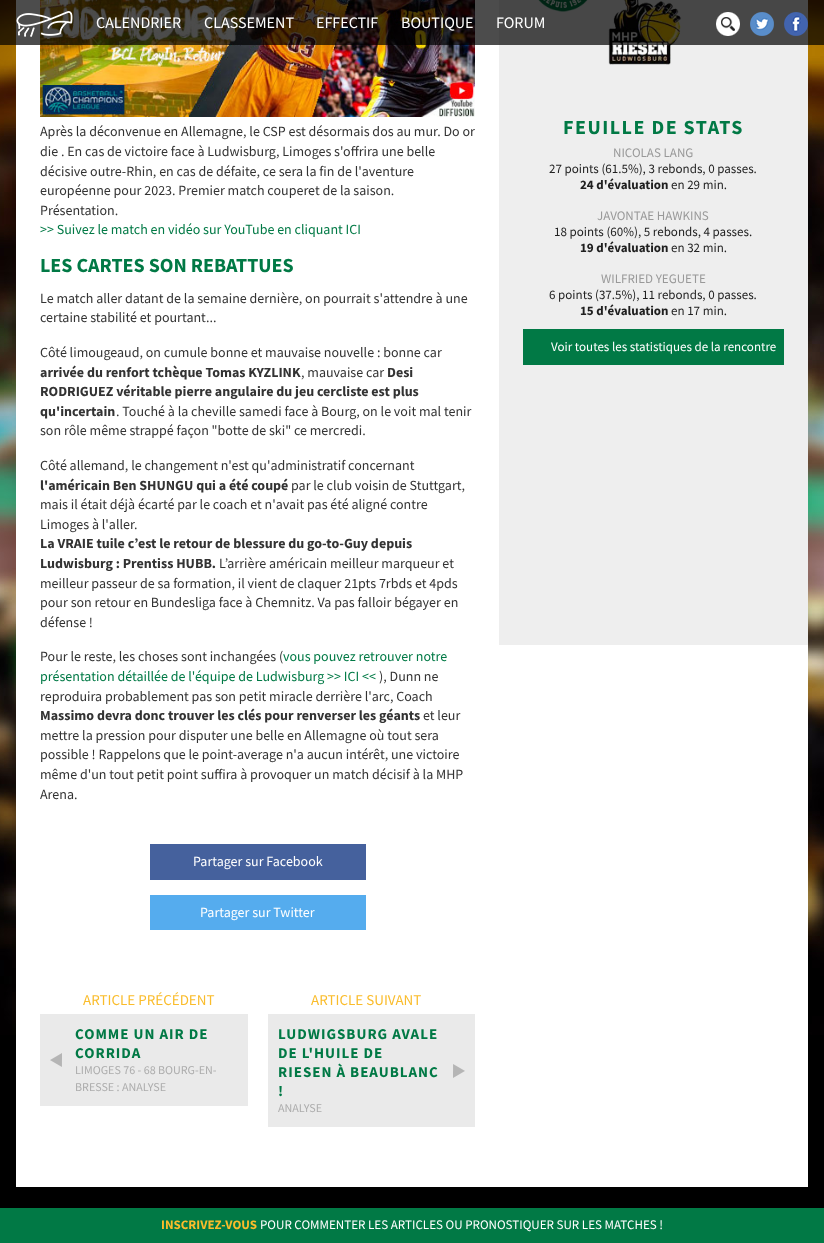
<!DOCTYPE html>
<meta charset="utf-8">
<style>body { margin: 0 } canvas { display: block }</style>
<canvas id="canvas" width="824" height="1243"></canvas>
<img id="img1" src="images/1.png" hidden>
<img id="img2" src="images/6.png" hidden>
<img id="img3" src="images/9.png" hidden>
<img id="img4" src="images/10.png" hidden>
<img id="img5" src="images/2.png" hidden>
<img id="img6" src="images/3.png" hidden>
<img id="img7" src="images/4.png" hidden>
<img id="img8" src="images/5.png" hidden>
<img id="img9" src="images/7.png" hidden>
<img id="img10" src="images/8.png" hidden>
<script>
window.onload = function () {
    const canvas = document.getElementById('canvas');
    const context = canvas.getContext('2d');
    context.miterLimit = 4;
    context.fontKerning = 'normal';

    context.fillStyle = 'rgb(0, 0, 0)';
    context.fillRect(0, 0, 824, 1243);
    context.drawImage(document.getElementById('img1'), 0, 0, 824, 1035);
    context.fillStyle = 'rgb(255, 255, 255)';
    context.fillRect(16, 0, 792, 1187);
    context.drawImage(document.getElementById('img2'), 40, 0, 435, 117);
    context.fillStyle = 'rgb(238, 238, 238)';
    context.fillRect(499, 0, 309, 645);
    context.drawImage(document.getElementById('img3'), 538, 0, 50, 12);
    context.drawImage(document.getElementById('img4'), 608, 0, 74, 65);
    context.fillStyle = 'rgba(0, 0, 0, 0.7)';
    context.fillRect(0, 0, 824, 45);
    context.drawImage(document.getElementById('img5'), 16, 11, 57, 26);
    context.drawImage(document.getElementById('img6'), 716, 12, 24, 24);
    context.drawImage(document.getElementById('img7'), 750, 12, 24, 24);
    context.drawImage(document.getElementById('img8'), 784, 12, 24, 24);
    context.fillStyle = 'rgb(69, 97, 157)';
    context.fillRect(150, 844, 216, 36);
    context.fillStyle = 'rgb(85, 172, 238)';
    context.fillRect(150, 895, 216, 35);
    context.fillStyle = 'rgb(234, 234, 234)';
    context.fillRect(40, 1014, 208, 92);
    context.drawImage(document.getElementById('img9'), 50, 1053, 12, 14);
    context.fillRect(268, 1014, 207, 113);
    context.drawImage(document.getElementById('img10'), 453, 1064, 12, 14);
    context.fillStyle = 'rgb(1, 121, 69)';
    context.fillRect(523, 329, 261, 36);
    context.fillRect(0, 1208, 824, 35);
    context.font = '16px Source Sans Pro';
    context.fillStyle = 'rgb(255, 255, 255)';
    context.fillText('CALENDRIER', 96, 28);
    context.fillText('CLASSEMENT', 204, 28);
    context.fillText('EFFECTIF', 316, 28);
    context.fillText('BOUTIQUE', 401, 28);
    context.fillText('FORUM', 496, 28);
    context.font = '14px Source Sans Pro';
    context.fillStyle = 'rgb(51, 51, 51)';
    context.fillText('Après la déconvenue en Allemagne, le CSP est désormais dos au mur. Do or', 40, 136);
    context.fillText('die . En cas de victoire face à Ludwisburg, Limoges s\'offrira une belle', 40, 156);
    context.fillText('décisive outre-Rhin, en cas de défaite, ce sera la fin de l\'aventure', 40, 176);
    context.fillText('européenne pour 2023. Premier match couperet de la saison.', 40, 195);
    context.fillText('Présentation.', 40, 215);
    context.fillStyle = 'rgb(1, 121, 69)';
    context.fillText('>> Suivez le match en vidéo sur YouTube en cliquant ICI', 40, 234);
    context.font = 'bold 20px Source Sans Pro';
    context.fillText('LES CARTES SON REBATTUES', 40, 272);
    context.font = '14px Source Sans Pro';
    context.fillStyle = 'rgb(51, 51, 51)';
    context.fillText('Le match aller datant de la semaine dernière, on pourrait s\'attendre à une', 40, 303);
    context.fillText('certaine stabilité et pourtant...', 40, 322);
    context.fillText('Côté limougeaud, on cumule bonne et mauvaise nouvelle : bonne car', 40, 357);
    context.font = 'bold 14px Source Sans Pro';
    context.fillText('arrivée du renfort tchèque Tomas KYZLINK', 40, 377);
    context.font = '14px Source Sans Pro';
    context.fillText(', mauvaise car', 301, 377);
    context.font = 'bold 14px Source Sans Pro';
    context.fillText('Desi', 387, 377);
    context.fillText('RODRIGUEZ véritable pierre angulaire du jeu cercliste est plus', 40, 396);
    context.fillText('qu\'incertain', 40, 416);
    context.font = '14px Source Sans Pro';
    context.fillText('. Touché à la cheville samedi face à Bourg, on le voit mal tenir', 116, 416);
    context.fillText('son rôle même strappé façon "botte de ski" ce mercredi.', 40, 435);
    context.fillText('Côté allemand, le changement n\'est qu\'administratif concernant', 40, 470);
    context.font = 'bold 14px Source Sans Pro';
    context.fillText('l\'américain Ben SHUNGU qui a été coupé', 40, 490);
    context.font = '14px Source Sans Pro';
    context.fillText('par le club voisin de Stuttgart,', 291, 490);
    context.fillText('mais il était déjà écarté par le coach et n\'avait pas été aligné contre', 40, 509);
    context.fillText('Limoges à l\'aller.', 40, 529);
    context.font = 'bold 14px Source Sans Pro';
    context.fillText('La VRAIE tuile c’est le retour de blessure du go-to-Guy depuis', 40, 548);
    context.fillText('Ludwisburg : Prentiss HUBB.', 40, 568);
    context.font = '14px Source Sans Pro';
    context.fillText('L’arrière américain meilleur marqueur et', 219, 568);
    context.fillText('meilleur passeur de sa formation, il vient de claquer 21pts 7rbds et 4pds', 40, 588);
    context.fillText('pour son retour en Bundesliga face à Chemnitz. Va pas falloir bégayer en', 40, 607);
    context.fillText('défense !', 40, 627);
    context.fillText('Pour le reste, les choses sont inchangées (', 40, 661);
    context.fillStyle = 'rgb(1, 121, 69)';
    context.fillText('vous pouvez retrouver notre', 283, 661);
    context.fillText('présentation détaillée de l\'équipe de Ludwisburg >> ICI <<', 40, 681);
    context.fillStyle = 'rgb(51, 51, 51)';
    context.fillText('), Dunn ne', 379, 681);
    context.fillText('reproduira probablement pas son petit miracle derrière l\'arc, Coach', 40, 701);
    context.font = 'bold 14px Source Sans Pro';
    context.fillText('Massimo devra donc trouver les clés pour renverser les géants', 40, 720);
    context.font = '14px Source Sans Pro';
    context.fillText('et leur', 423, 720);
    context.fillText('mettre la pression pour disputer une belle en Allemagne où tout sera', 40, 740);
    context.fillText('possible ! Rappelons que le point-average n\'a aucun intérêt, une victoire', 40, 759);
    context.fillText('même d\'un tout petit point suffira à provoquer un match décisif à la MHP', 40, 779);
    context.fillText('Arena.', 40, 799);
    context.fillStyle = 'rgb(255, 255, 255)';
    context.fillText('Partager sur Facebook', 193, 866);
    context.fillText('Partager sur Twitter', 200, 917);
    context.font = '15px Source Sans Pro';
    context.fillStyle = 'rgb(250, 188, 43)';
    context.fillText('ARTICLE PRÉCÉDENT', 83, 1005);
    context.letterSpacing = '1px';
    context.font = 'bold 15px Source Sans Pro';
    context.fillStyle = 'rgb(1, 121, 69)';
    context.fillText('COMME UN AIR DE', 75, 1039);
    context.fillText('CORRIDA', 75, 1058);
    context.letterSpacing = '0px';
    context.font = '12px Source Sans Pro';
    context.fillStyle = 'rgb(172, 172, 172)';
    context.fillText('LIMOGES 76 - 68 BOURG-EN-', 75, 1074);
    context.fillText('BRESSE : ANALYSE', 75, 1091);
    context.font = '15px Source Sans Pro';
    context.fillStyle = 'rgb(250, 188, 43)';
    context.fillText('ARTICLE SUIVANT', 311, 1005);
    context.letterSpacing = '1px';
    context.font = 'bold 15px Source Sans Pro';
    context.fillStyle = 'rgb(1, 121, 69)';
    context.fillText('LUDWIGSBURG AVALE', 278, 1039);
    context.fillText('DE L\'HUILE DE', 278, 1058);
    context.fillText('RIESEN À BEAUBLANC', 278, 1077);
    context.fillText('!', 278, 1096);
    context.letterSpacing = '0px';
    context.font = '12px Source Sans Pro';
    context.fillStyle = 'rgb(172, 172, 172)';
    context.fillText('ANALYSE', 278, 1112);
    context.letterSpacing = '1.5px';
    context.font = 'bold 20px Source Sans Pro';
    context.fillStyle = 'rgb(1, 121, 69)';
    context.fillText('FEUILLE DE STATS', 563, 134);
    context.letterSpacing = '0px';
    context.font = '13px Source Sans Pro';
    context.fillStyle = 'rgb(153, 153, 153)';
    context.fillText('NICOLAS LANG', 613, 157);
    context.fillStyle = 'rgb(31, 31, 31)';
    context.fillText('27 points (61.5%), 3 rebonds, 0 passes.', 549, 173);
    context.font = 'bold 13px Source Sans Pro';
    context.fillText('24 d\'évaluation', 580, 189);
    context.font = '13px Source Sans Pro';
    context.fillText('en 29 min.', 671, 189);
    context.fillStyle = 'rgb(153, 153, 153)';
    context.fillText('JAVONTAE HAWKINS', 597, 220);
    context.fillStyle = 'rgb(31, 31, 31)';
    context.fillText('18 points (60%), 5 rebonds, 4 passes.', 554, 236);
    context.font = 'bold 13px Source Sans Pro';
    context.fillText('19 d\'évaluation', 580, 252);
    context.font = '13px Source Sans Pro';
    context.fillText('en 32 min.', 671, 252);
    context.fillStyle = 'rgb(153, 153, 153)';
    context.fillText('WILFRIED YEGUETE', 601, 283);
    context.fillStyle = 'rgb(31, 31, 31)';
    context.fillText('6 points (37.5%), 11 rebonds, 0 passes.', 549, 299);
    context.font = 'bold 13px Source Sans Pro';
    context.fillText('15 d\'évaluation', 580, 315);
    context.font = '13px Source Sans Pro';
    context.fillText('en 17 min.', 671, 315);
    context.fillStyle = 'rgb(255, 255, 255)';
    context.fillText('Voir toutes les statistiques de la rencontre', 551, 351);
    context.font = 'bold 13px Source Sans Pro';
    context.fillStyle = 'rgb(250, 188, 43)';
    context.fillText('INSCRIVEZ-VOUS', 161, 1229);
    context.font = '13px Source Sans Pro';
    context.fillStyle = 'rgb(255, 255, 255)';
    context.fillText('POUR COMMENTER LES ARTICLES OU PRONOSTIQUER SUR LES MATCHES !', 260, 1229);
};
</script>
